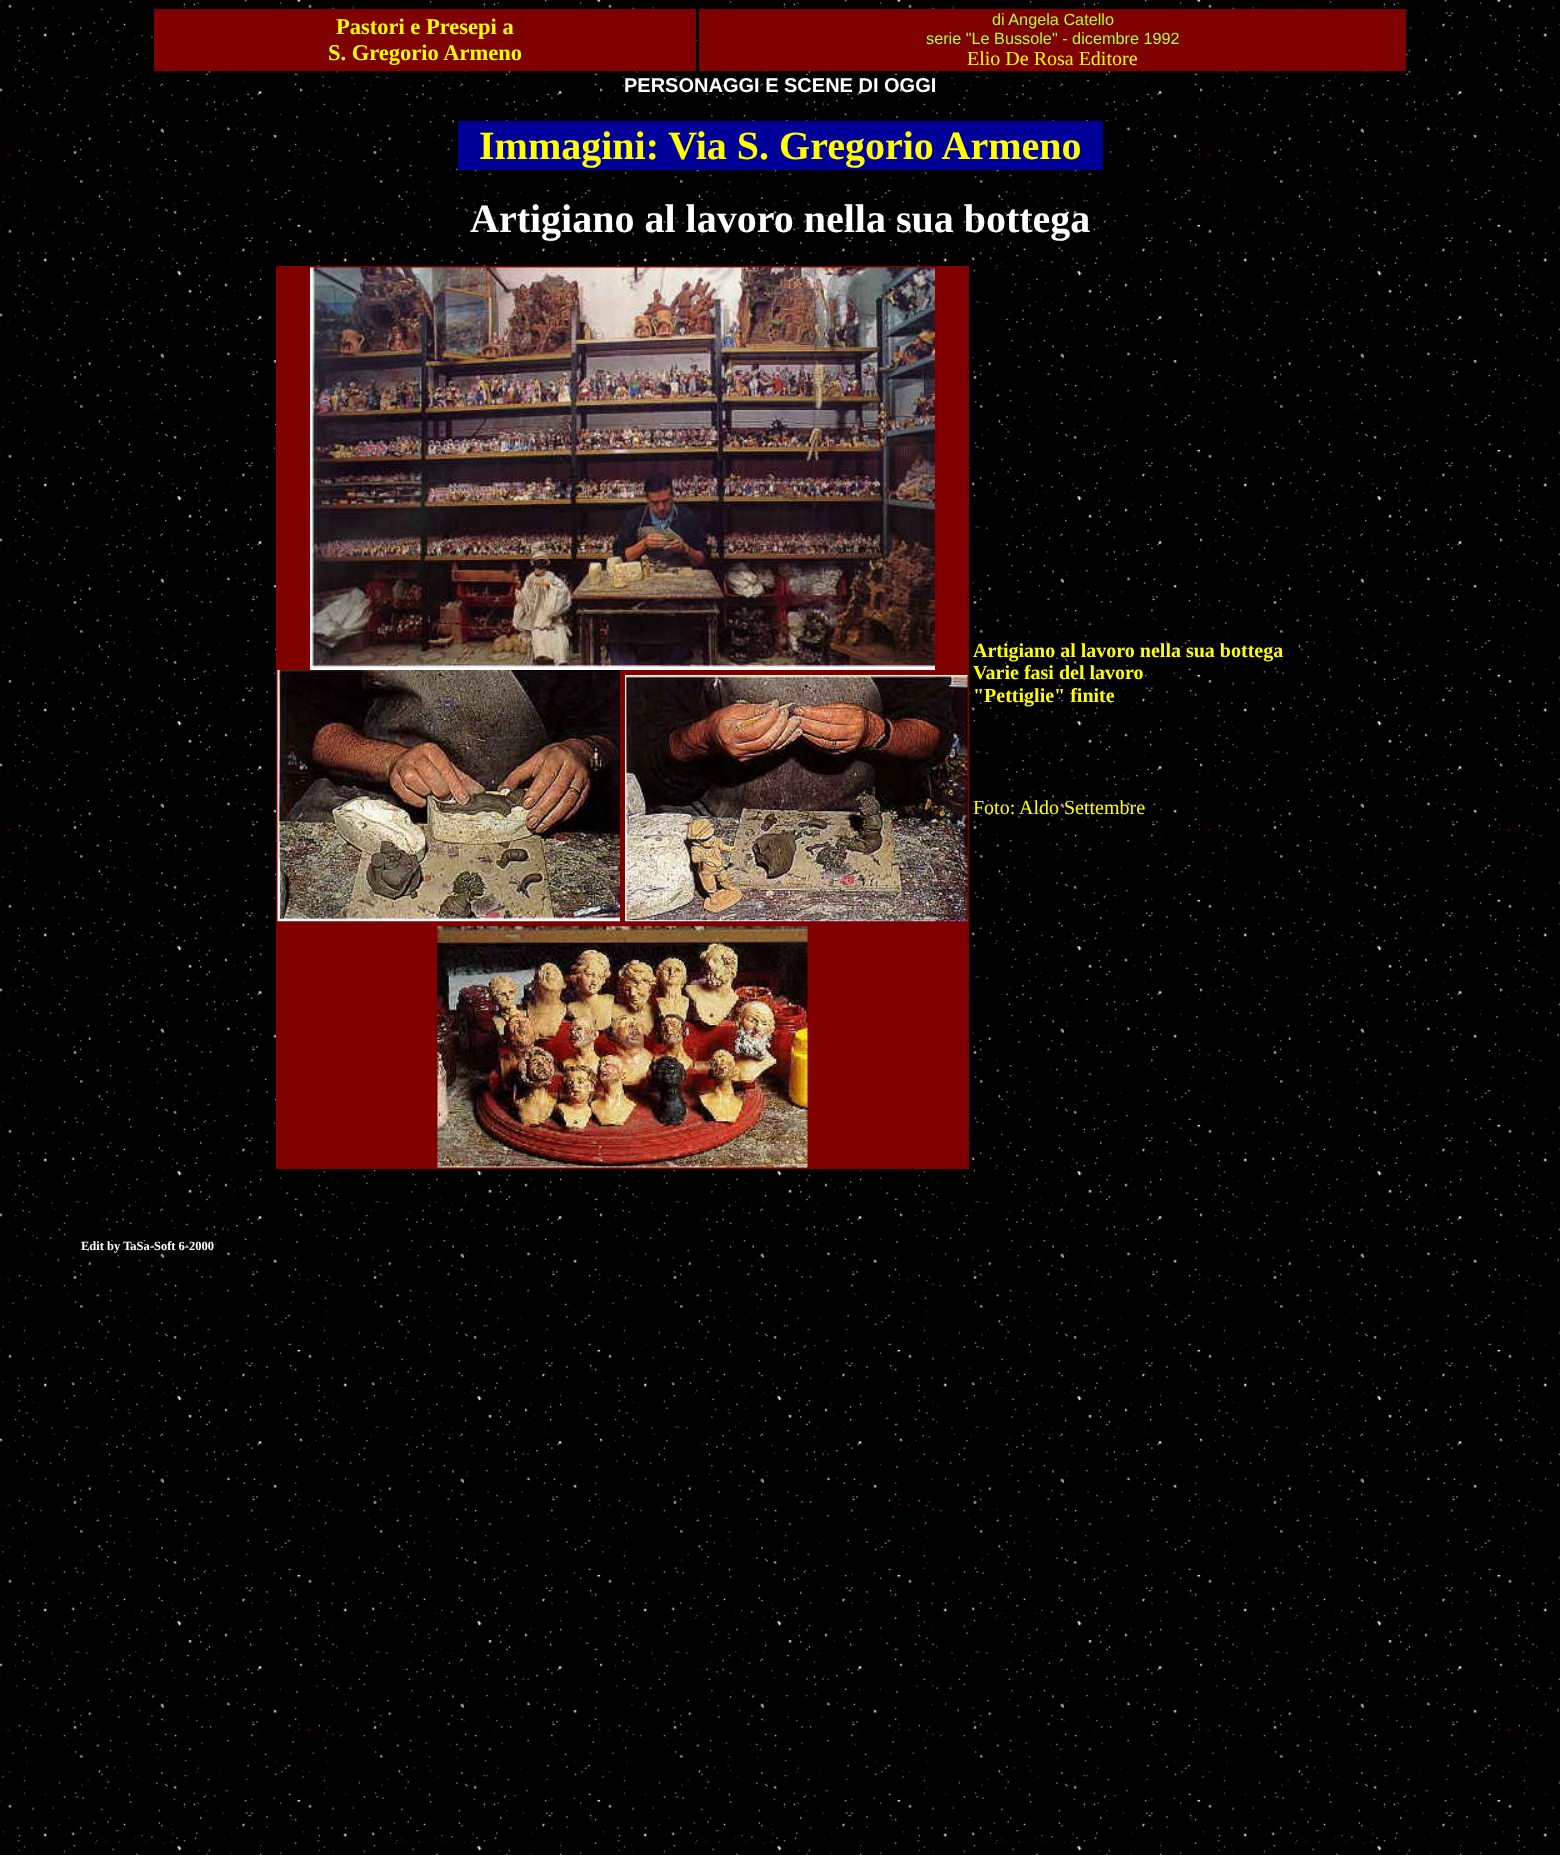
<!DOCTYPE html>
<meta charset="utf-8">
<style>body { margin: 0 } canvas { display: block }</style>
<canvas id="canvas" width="1560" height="1855"></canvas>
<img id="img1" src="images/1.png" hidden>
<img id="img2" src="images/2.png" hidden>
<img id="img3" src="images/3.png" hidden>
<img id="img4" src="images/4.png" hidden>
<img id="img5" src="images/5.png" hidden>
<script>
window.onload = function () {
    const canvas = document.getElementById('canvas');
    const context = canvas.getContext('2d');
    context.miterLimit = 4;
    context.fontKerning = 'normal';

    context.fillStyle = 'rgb(255, 255, 255)';
    context.fillRect(0, 0, 1560, 1855);
    context.drawImage(document.getElementById('img1'), 0, 0, 1560, 1855);
    context.fillStyle = 'rgb(128, 0, 0)';
    context.fillRect(154, 9, 542, 62);
    context.fillRect(699, 9, 707, 62);
    context.fillStyle = 'rgb(0, 0, 153)';
    context.fillRect(458, 121, 645, 49);
    context.fillStyle = 'rgb(128, 0, 0)';
    context.fillRect(276, 266, 693, 903);
    context.drawImage(document.getElementById('img2'), 310, 267, 625, 403);
    context.drawImage(document.getElementById('img3'), 277, 670, 343, 252);
    context.drawImage(document.getElementById('img4'), 625, 675, 343, 247);
    context.drawImage(document.getElementById('img5'), 437, 926, 371, 242);
    context.font = 'bold 22.5px Liberation Serif';
    context.fillStyle = 'rgb(255, 255, 0)';
    context.fillText('Pastori e Presepi a', 336, 34);
    context.fillText('S. Gregorio Armeno', 328, 60);
    context.font = '16.25px Liberation Sans';
    context.fillStyle = 'rgb(173, 255, 47)';
    context.fillText('di Angela Catello', 992, 25);
    context.fillText('serie "Le Bussole" - dicembre 1992', 926, 44);
    context.font = '20px Liberation Serif';
    context.fillStyle = 'rgb(255, 255, 0)';
    context.fillText('Elio De Rosa Editore', 967, 65);
    context.font = 'bold 20px Liberation Sans';
    context.fillStyle = 'rgb(255, 255, 255)';
    context.fillText('PERSONAGGI E SCENE DI OGGI', 624, 92);
    context.font = 'bold 40px Liberation Serif';
    context.fillStyle = 'rgb(255, 255, 0)';
    context.fillText('Immagini: Via S. Gregorio Armeno', 479, 159);
    context.fillStyle = 'rgb(255, 255, 255)';
    context.fillText('Artigiano al lavoro nella sua bottega', 470, 232);
    context.font = 'bold 20px Liberation Serif';
    context.fillStyle = 'rgb(255, 255, 0)';
    context.fillText('Artigiano al lavoro nella sua bottega', 973, 657);
    context.fillText('Varie fasi del lavoro', 973, 679);
    context.fillText('"Pettiglie" finite', 973, 702);
    context.font = '20px Liberation Serif';
    context.fillText('Foto:', 973, 814);
    context.fillText('Aldo Settembre', 1019, 814);
    context.font = 'bold 12.5px Liberation Serif';
    context.fillStyle = 'rgb(255, 255, 255)';
    context.fillText('Edit by TaSa-Soft 6-2000', 81, 1250);
};
</script>
